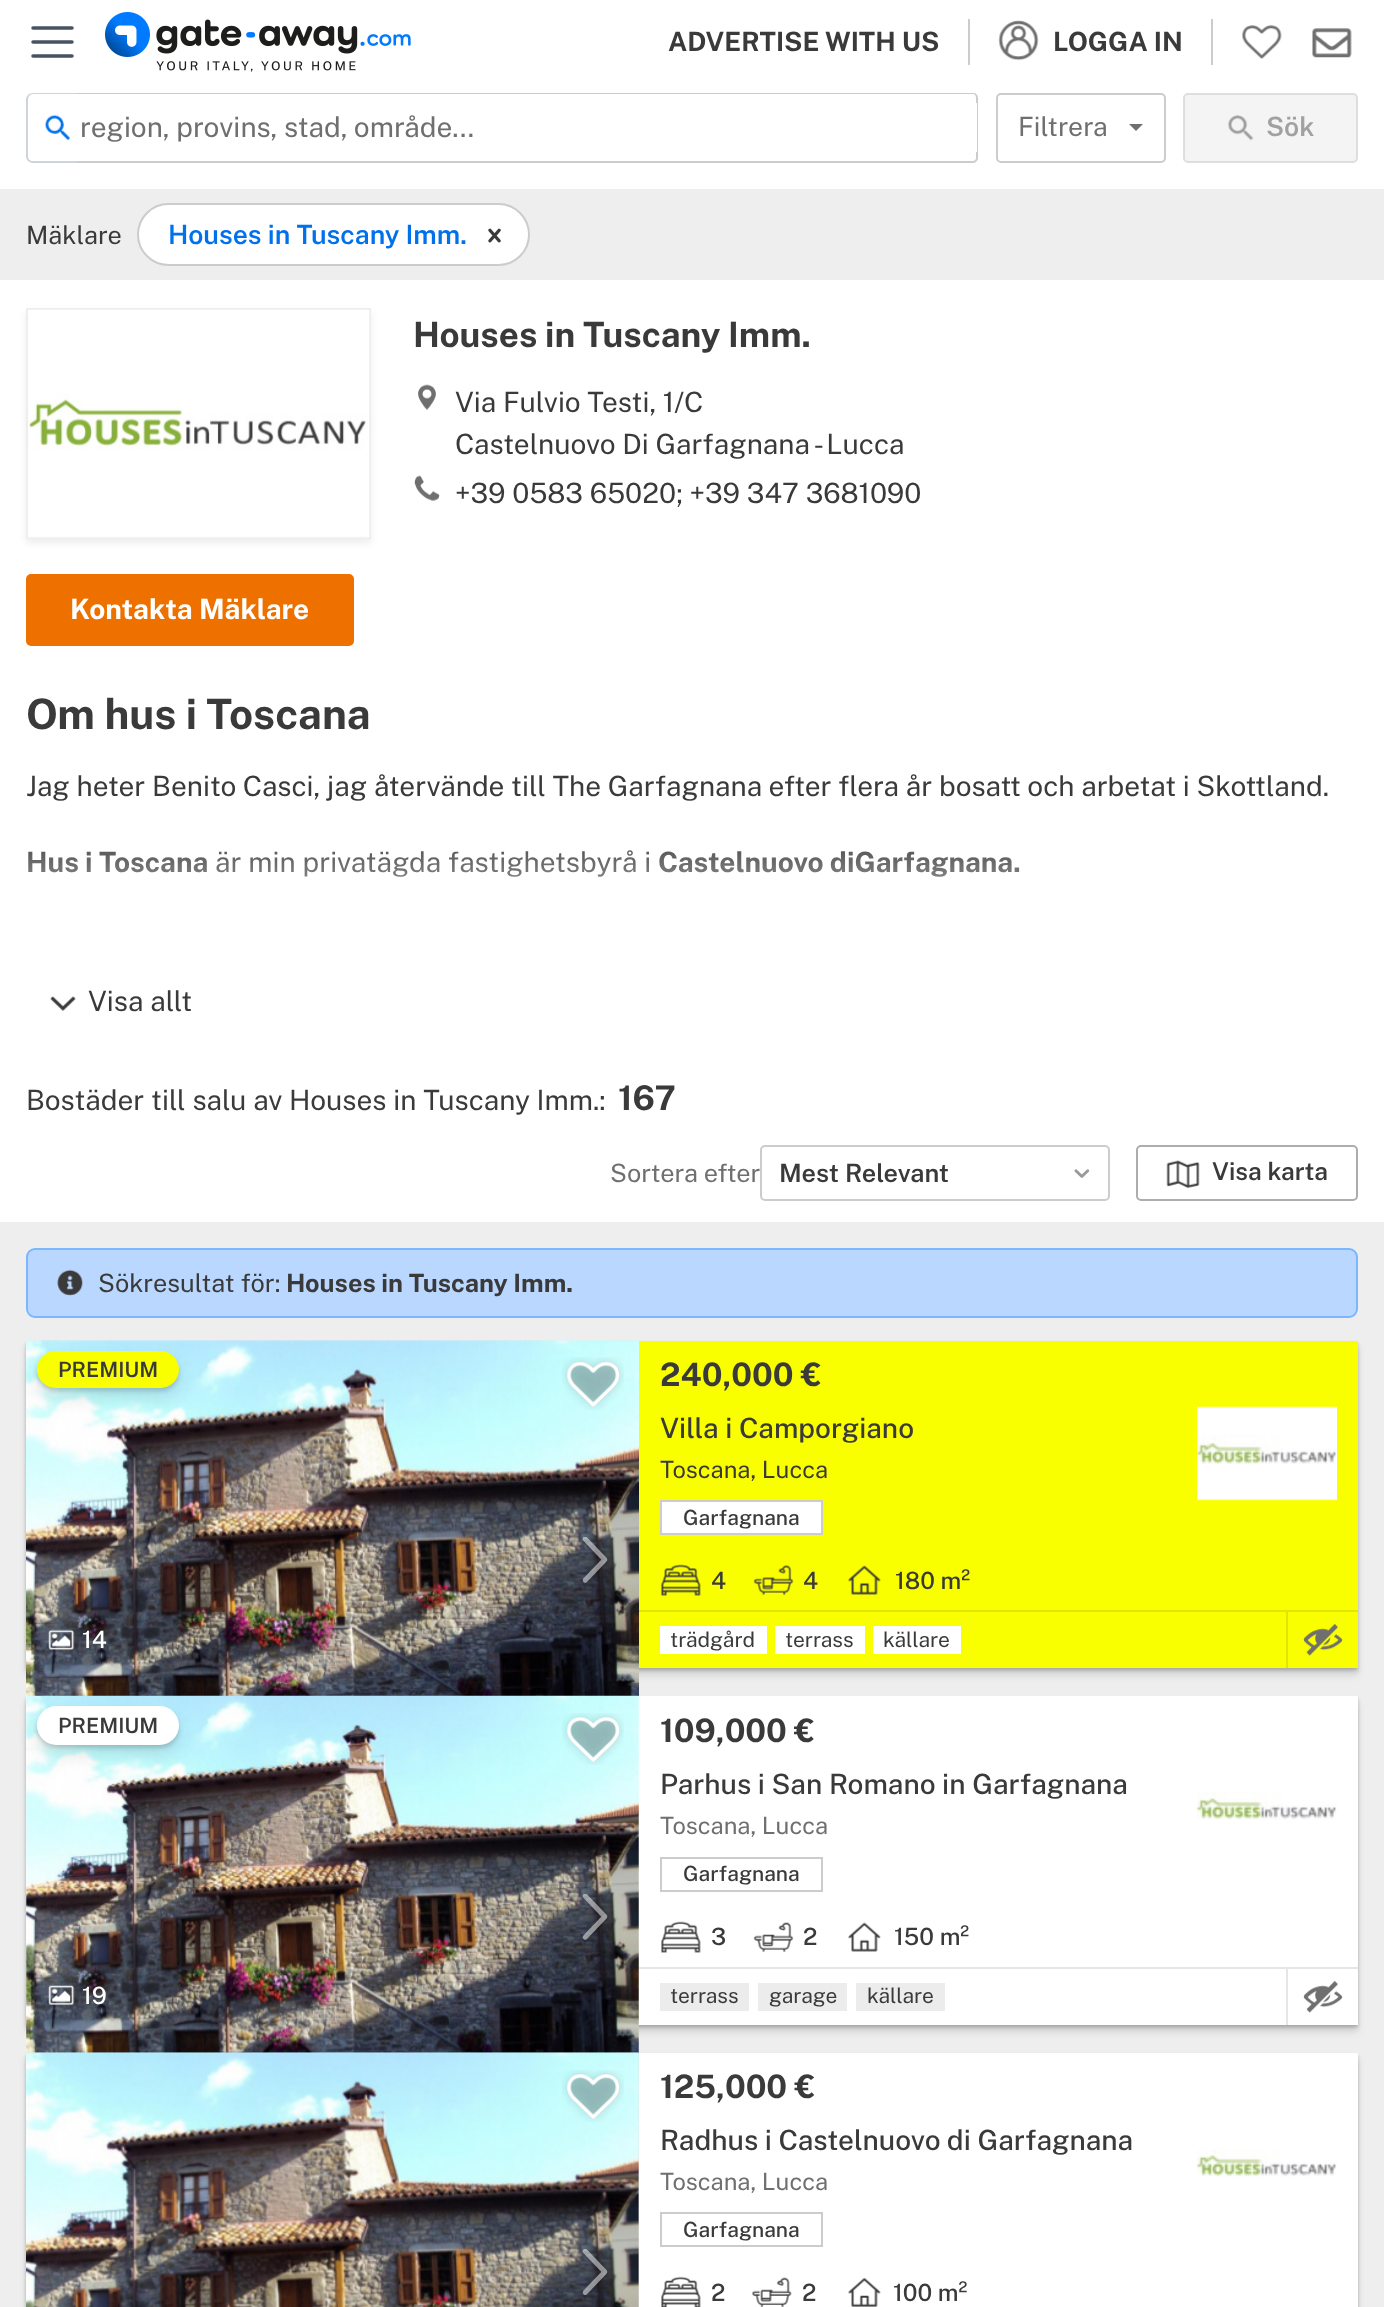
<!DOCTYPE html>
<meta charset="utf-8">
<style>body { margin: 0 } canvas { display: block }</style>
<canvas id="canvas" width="1384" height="2307"></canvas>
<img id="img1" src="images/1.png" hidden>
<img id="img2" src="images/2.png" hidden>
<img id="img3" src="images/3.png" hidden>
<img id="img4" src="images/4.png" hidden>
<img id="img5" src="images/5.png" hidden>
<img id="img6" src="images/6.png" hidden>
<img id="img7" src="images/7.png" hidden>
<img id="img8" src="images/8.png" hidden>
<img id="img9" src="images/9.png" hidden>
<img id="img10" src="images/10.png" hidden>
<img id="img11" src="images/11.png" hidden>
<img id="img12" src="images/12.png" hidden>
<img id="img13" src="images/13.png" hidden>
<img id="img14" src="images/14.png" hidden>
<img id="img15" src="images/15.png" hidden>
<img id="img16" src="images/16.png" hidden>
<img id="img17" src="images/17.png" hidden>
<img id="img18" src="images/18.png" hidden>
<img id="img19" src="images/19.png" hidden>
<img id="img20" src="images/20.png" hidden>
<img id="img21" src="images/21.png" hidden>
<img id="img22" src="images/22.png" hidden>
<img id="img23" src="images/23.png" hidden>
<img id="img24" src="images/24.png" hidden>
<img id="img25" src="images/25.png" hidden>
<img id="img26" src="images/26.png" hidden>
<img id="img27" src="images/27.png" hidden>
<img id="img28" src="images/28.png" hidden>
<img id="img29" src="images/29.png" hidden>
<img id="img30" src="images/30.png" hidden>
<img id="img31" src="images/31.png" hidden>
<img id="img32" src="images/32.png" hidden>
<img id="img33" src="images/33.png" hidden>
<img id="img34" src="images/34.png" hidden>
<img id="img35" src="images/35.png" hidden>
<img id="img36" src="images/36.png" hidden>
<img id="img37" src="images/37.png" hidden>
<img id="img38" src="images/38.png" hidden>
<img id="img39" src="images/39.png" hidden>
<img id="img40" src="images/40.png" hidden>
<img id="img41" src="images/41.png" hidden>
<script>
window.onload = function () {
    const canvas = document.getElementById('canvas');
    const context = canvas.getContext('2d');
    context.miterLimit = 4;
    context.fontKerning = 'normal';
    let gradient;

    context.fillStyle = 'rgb(255, 255, 255)';
    context.fillRect(0, 0, 1384, 2307);
    context.beginPath();
    context.moveTo(33, 28);
    context.lineTo(72, 28);
    context.moveTo(33, 42);
    context.lineTo(72, 42);
    context.moveTo(33, 56);
    context.lineTo(72, 56);
    context.strokeStyle = 'rgb(71, 83, 97)';
    context.lineWidth = 3.5;
    context.lineCap = 'round';
    context.stroke();
    context.drawImage(document.getElementById('img1'), 105, 12, 306, 60);
    context.fillStyle = 'rgb(204, 204, 204)';
    context.fillRect(968, 19, 2, 46);
    context.fillRect(1211, 19, 2, 46);
    context.drawImage(document.getElementById('img2'), 998, 20, 41, 41);
    context.drawImage(document.getElementById('img3'), 1242, 25, 40, 34);
    context.drawImage(document.getElementById('img4'), 1312, 28, 40, 30);
    context.fillStyle = 'rgb(206, 212, 218)';
    context.beginPath();
    context.moveTo(33, 93);
    context.lineTo(79, 93);
    context.lineTo(79, 163);
    context.lineTo(33, 163);
    context.bezierCurveTo(29, 163, 26, 160, 26, 156);
    context.lineTo(26, 100);
    context.bezierCurveTo(26, 96, 29, 93, 33, 93);
    context.closePath();
    context.moveTo(33, 94);
    context.lineTo(79, 94);
    context.lineTo(79, 161);
    context.lineTo(33, 161);
    context.bezierCurveTo(30, 161, 28, 159, 28, 156);
    context.lineTo(28, 100);
    context.bezierCurveTo(28, 97, 30, 94, 33, 94);
    context.closePath();
    context.fill('evenodd');
    context.drawImage(document.getElementById('img5'), 44, 114, 27, 27);
    context.fillStyle = 'rgb(255, 255, 255)';
    context.beginPath();
    context.roundRect(77, 93, 901, 70, [0, 5, 5, 0]);
    context.fill();
    context.fillStyle = 'rgb(204, 204, 204)';
    context.beginPath();
    context.moveTo(77, 93);
    context.lineTo(973, 93);
    context.bezierCurveTo(976, 93, 978, 95, 978, 98);
    context.lineTo(978, 158);
    context.bezierCurveTo(978, 160, 976, 163, 973, 163);
    context.lineTo(77, 163);
    context.closePath();
    context.moveTo(77, 94);
    context.lineTo(973, 94);
    context.bezierCurveTo(975, 94, 976, 96, 976, 98);
    context.lineTo(976, 158);
    context.bezierCurveTo(976, 159, 975, 161, 973, 161);
    context.lineTo(77, 161);
    context.closePath();
    context.fill('evenodd');
    context.fillStyle = 'rgb(255, 255, 255)';
    context.fillRect(976, 103, 1, 49);
    context.beginPath();
    context.roundRect(997, 94, 168, 68, 4);
    context.strokeStyle = 'rgb(204, 204, 204)';
    context.lineWidth = 2;
    context.stroke();
    context.fillStyle = 'rgb(111, 111, 111)';
    context.beginPath();
    context.moveTo(1129, 124);
    context.lineTo(1143, 124);
    context.lineTo(1136, 131);
    context.closePath();
    context.fill();
    context.fillStyle = 'rgb(244, 244, 244)';
    context.beginPath();
    context.roundRect(1184, 94, 173, 68, 4);
    context.fill();
    context.strokeStyle = 'rgb(222, 222, 222)';
    context.stroke();
    context.drawImage(document.getElementById('img6'), 1228, 115, 26, 26);
    context.fillStyle = 'rgb(238, 238, 238)';
    context.fillRect(0, 189, 1384, 91);
    context.fillStyle = 'rgb(255, 255, 255)';
    context.beginPath();
    context.roundRect(138, 204, 391, 61, 30.5);
    context.fill();
    context.strokeStyle = 'rgb(204, 204, 204)';
    context.stroke();
    context.drawImage(document.getElementById('img7'), 488, 228, 13, 15);
    context.fillStyle = 'rgba(0, 0, 0, 0.07)';
    context.filter = 'blur(3.5px)';
    context.beginPath();
    context.rect(26, 312, 345, 231);
    context.fill();
    context.filter = 'none';
    context.strokeStyle = 'rgb(238, 238, 238)';
    context.strokeRect(27, 309, 343, 229);
    context.drawImage(document.getElementById('img8'), 28, 309, 342, 229);
    context.drawImage(document.getElementById('img9'), 418, 384, 18, 26);
    context.drawImage(document.getElementById('img10'), 414, 475, 26, 26);
    context.fillStyle = 'rgb(238, 113, 0)';
    context.beginPath();
    context.roundRect(27, 575, 326, 70, 4);
    context.fill();
    context.strokeStyle = 'rgb(238, 113, 0)';
    context.stroke();
    context.drawImage(document.getElementById('img11'), 50, 996, 26, 15);
    context.beginPath();
    context.roundRect(761, 1146, 348, 54, 4);
    context.strokeStyle = 'rgb(204, 204, 204)';
    context.stroke();
    context.drawImage(document.getElementById('img12'), 1074, 1169, 16, 9);
    context.beginPath();
    context.roundRect(1137, 1146, 220, 54, 4);
    context.strokeStyle = 'rgb(173, 173, 173)';
    context.stroke();
    context.drawImage(document.getElementById('img13'), 1166, 1160, 34, 28);
    context.fillStyle = 'rgb(238, 238, 238)';
    context.fillRect(0, 1222, 1384, 1085);
    context.fillStyle = 'rgb(185, 215, 255)';
    context.beginPath();
    context.roundRect(27, 1249, 1330, 68, 8);
    context.fill();
    context.strokeStyle = 'rgb(123, 183, 255)';
    context.stroke();
    context.drawImage(document.getElementById('img14'), 57, 1269, 26, 27);
    context.fillStyle = 'rgba(0, 0, 0, 0.11)';
    context.filter = 'blur(3.5px)';
    context.beginPath();
    context.rect(26, 1348, 1332, 327);
    context.fill();
    context.filter = 'none';
    context.filter = 'blur(2px)';
    context.beginPath();
    context.rect(26, 1344, 1332, 327);
    context.fill();
    context.filter = 'none';
    context.filter = 'blur(1px)';
    context.beginPath();
    context.rect(26, 1342, 1332, 328);
    context.fill();
    context.filter = 'none';
    context.fillStyle = 'rgb(250, 255, 0)';
    context.fillRect(26, 1341, 1332, 327);
    context.drawImage(document.getElementById('img15'), 26, 1340, 613, 356);
    context.drawImage(document.getElementById('img16'), 582, 1537, 26, 48);
    context.fillStyle = 'rgba(0, 0, 0, 0.15)';
    context.filter = 'blur(2px)';
    context.beginPath();
    context.roundRect(37, 1355, 142, 36, 18);
    context.fill();
    context.filter = 'none';
    context.fillStyle = 'rgba(0, 0, 0, 0.1)';
    context.filter = 'blur(9px)';
    context.beginPath();
    context.roundRect(37, 1360, 142, 37, 18.5);
    context.fill();
    context.filter = 'none';
    context.fillStyle = 'rgb(250, 255, 0)';
    context.beginPath();
    context.roundRect(37, 1351, 142, 37, 18.5);
    context.fill();
    context.drawImage(document.getElementById('img17'), 562, 1357, 62, 53);
    context.drawImage(document.getElementById('img18'), 566, 1361, 54, 47);
    context.drawImage(document.getElementById('img19'), 48, 1629, 27, 21);
    context.drawImage(document.getElementById('img20'), 1197, 1406, 140, 95);
    context.fillStyle = 'rgb(255, 255, 255)';
    context.beginPath();
    context.rect(661, 1501, 161, 33);
    context.fill();
    context.strokeStyle = 'rgb(204, 204, 204)';
    context.stroke();
    context.drawImage(document.getElementById('img21'), 661, 1564, 40, 32);
    context.drawImage(document.getElementById('img22'), 753, 1565, 41, 31);
    context.drawImage(document.getElementById('img23'), 848, 1565, 33, 30);
    context.fillStyle = 'rgb(225, 230, 0)';
    context.fillRect(639, 1610, 719, 2);
    context.fillStyle = 'rgb(255, 255, 255)';
    context.fillRect(660, 1626, 107, 28);
    context.fillRect(775, 1626, 90, 28);
    context.fillRect(873, 1626, 88, 28);
    context.fillStyle = 'rgb(225, 230, 0)';
    context.fillRect(1286, 1612, 2, 56);
    context.drawImage(document.getElementById('img24'), 1303, 1624, 40, 32);
    context.fillStyle = 'rgba(0, 0, 0, 0.11)';
    context.filter = 'blur(3.5px)';
    context.beginPath();
    context.rect(26, 1703, 1332, 329);
    context.fill();
    context.filter = 'none';
    context.filter = 'blur(2px)';
    context.beginPath();
    context.rect(26, 1699, 1332, 329);
    context.fill();
    context.filter = 'none';
    context.filter = 'blur(1px)';
    context.beginPath();
    context.rect(26, 1698, 1332, 329);
    context.fill();
    context.filter = 'none';
    context.fillStyle = 'rgb(255, 255, 255)';
    context.fillRect(26, 1696, 1332, 329);
    context.drawImage(document.getElementById('img25'), 26, 1695, 613, 358);
    context.drawImage(document.getElementById('img26'), 582, 1894, 26, 48);
    context.fillStyle = 'rgba(0, 0, 0, 0.15)';
    context.filter = 'blur(2px)';
    context.beginPath();
    context.roundRect(37, 1710, 142, 38, 19);
    context.fill();
    context.filter = 'none';
    context.fillStyle = 'rgba(0, 0, 0, 0.1)';
    context.filter = 'blur(9px)';
    context.beginPath();
    context.roundRect(37, 1715, 142, 39, 19.5);
    context.fill();
    context.filter = 'none';
    context.fillStyle = 'rgb(255, 255, 255)';
    context.beginPath();
    context.roundRect(37, 1706, 142, 39, 19.5);
    context.fill();
    context.drawImage(document.getElementById('img27'), 562, 1713, 62, 52);
    context.drawImage(document.getElementById('img28'), 566, 1716, 54, 47);
    context.drawImage(document.getElementById('img29'), 48, 1985, 27, 20);
    context.drawImage(document.getElementById('img30'), 1197, 1792, 140, 28);
    context.strokeRect(661, 1858, 161, 33);
    context.drawImage(document.getElementById('img31'), 661, 1921, 40, 32);
    context.drawImage(document.getElementById('img32'), 753, 1922, 41, 30);
    context.drawImage(document.getElementById('img33'), 848, 1922, 33, 30);
    context.fillStyle = 'rgb(230, 230, 230)';
    context.fillRect(639, 1967, 719, 2);
    context.fillStyle = 'rgb(236, 236, 236)';
    context.fillRect(660, 1983, 89, 28);
    context.fillRect(758, 1983, 89, 28);
    context.fillRect(856, 1983, 89, 28);
    context.fillStyle = 'rgb(230, 230, 230)';
    context.fillRect(1286, 1969, 2, 56);
    context.drawImage(document.getElementById('img34'), 1303, 1981, 40, 32);
    context.fillStyle = 'rgba(0, 0, 0, 0.11)';
    context.filter = 'blur(3.5px)';
    context.beginPath();
    context.rect(26, 2060, 1332, 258);
    context.fill();
    context.filter = 'none';
    context.filter = 'blur(2px)';
    context.beginPath();
    context.rect(26, 2056, 1332, 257);
    context.fill();
    context.filter = 'none';
    context.filter = 'blur(1px)';
    context.beginPath();
    context.rect(26, 2055, 1332, 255);
    context.fill();
    context.filter = 'none';
    context.fillStyle = 'rgb(255, 255, 255)';
    context.fillRect(639, 2053, 719, 254);
    context.fillStyle = 'rgb(226, 226, 226)';
    context.fillRect(26, 2053, 613, 254);
    context.drawImage(document.getElementById('img35'), 26, 2052, 613, 255);
    context.drawImage(document.getElementById('img36'), 582, 2249, 26, 49);
    context.drawImage(document.getElementById('img37'), 562, 2070, 62, 52);
    context.drawImage(document.getElementById('img38'), 566, 2073, 54, 47);
    context.drawImage(document.getElementById('img30'), 1197, 2149, 140, 28);
    context.strokeRect(661, 2213, 161, 33);
    context.drawImage(document.getElementById('img39'), 661, 2276, 40, 31);
    context.drawImage(document.getElementById('img40'), 752, 2277, 40, 30);
    context.drawImage(document.getElementById('img41'), 848, 2277, 33, 30);
    context.font = 'bold 26.6px Public Sans';
    context.fillStyle = 'rgb(58, 58, 58)';
    context.fillText('ADVERTISE WITH US', 668, 51);
    context.fillText('LOGGA IN', 1053, 51);
    context.font = '28px Public Sans';
    context.fillStyle = 'rgb(111, 111, 111)';
    context.fillText('region, provins, stad, område...', 80, 137);
    context.font = '26.6px Public Sans';
    context.fillText('Filtrera', 1018, 136);
    context.font = '600 26.6px Public Sans';
    context.fillStyle = 'rgb(161, 161, 161)';
    context.fillText('Sök', 1266, 136);
    context.font = '25.25px Public Sans';
    context.fillStyle = 'rgb(58, 58, 58)';
    context.fillText('Mäklare', 26, 244);
    context.font = '600 26.6px Public Sans';
    context.fillStyle = 'rgb(0, 113, 235)';
    context.fillText('Houses in Tuscany Imm.', 168, 244);
    context.font = 'bold 35px Public Sans';
    context.fillStyle = 'rgb(58, 58, 58)';
    context.fillText('Houses in Tuscany Imm.', 413, 347);
    context.font = '28px Public Sans';
    context.fillText('Via Fulvio Testi, 1/C', 455, 412);
    context.fillText('Castelnuovo Di Garfagnana - Lucca', 455, 454);
    context.fillText('+39 0583 65020; +39 347 3681090', 455, 503);
    context.font = 'bold 28px Public Sans';
    context.fillStyle = 'rgb(255, 255, 255)';
    context.fillText('Kontakta Mäklare', 70, 619);
    context.font = 'bold 42px Public Sans';
    context.fillStyle = 'rgb(58, 58, 58)';
    context.fillText('Om hus i Toscana', 26, 729);
    context.font = '28px Public Sans';
    context.fillText('Jag heter Benito Casci, jag återvände till The Garfagnana efter flera år bosatt och arbetat i Skottland.', 26, 796);
    context.font = 'bold 28px Public Sans';
    context.fillText('Hus i Toscana', 26, 872);
    context.font = '28px Public Sans';
    context.fillText('är min privatägda fastighetsbyrå i', 215, 872);
    context.font = 'bold 28px Public Sans';
    context.fillText('Castelnuovo diGarfagnana.', 658, 872);
    gradient = context.createLinearGradient(692, 968, 692, 828);
    gradient.addColorStop(0, 'rgb(255, 255, 255)');
    gradient.addColorStop(1, 'rgba(255, 255, 255, 0)');
    context.fillStyle = gradient;
    context.fillRect(28, 850, 992, 27);
    context.font = '28px Public Sans';
    context.fillStyle = 'rgb(58, 58, 58)';
    context.fillText('Visa allt', 88, 1011);
    context.fillText('Bostäder till salu av Houses in Tuscany Imm.:', 26, 1110);
    context.font = 'bold 34px Public Sans';
    context.fillText('167', 618, 1110);
    context.font = '25.25px Public Sans';
    context.fillStyle = 'rgb(111, 111, 111)';
    context.fillText('Sortera efter', 610, 1182);
    context.font = '600 25.25px Public Sans';
    context.fillStyle = 'rgb(58, 58, 58)';
    context.fillText('Mest Relevant', 779, 1182);
    context.font = '600 24.5px Public Sans';
    context.fillText('Visa karta', 1212, 1180);
    context.font = '25.25px Public Sans';
    context.fillText('Sökresultat för:', 98, 1292);
    context.font = 'bold 25.25px Public Sans';
    context.fillText('Houses in Tuscany Imm.', 286, 1292);
    context.font = '600 21px Public Sans';
    context.fillText('PREMIUM', 58, 1377);
    context.font = '500 23.75px Public Sans';
    context.fillStyle = 'rgb(255, 255, 255)';
    context.fillText('14', 82, 1648);
    context.font = 'bold 32.25px Public Sans';
    context.fillStyle = 'rgb(58, 58, 58)';
    context.fillText('240,000 €', 660, 1386);
    context.font = '500 28px Public Sans';
    context.fillText('Villa i Camporgiano', 660, 1438);
    context.font = '23.75px Public Sans';
    context.fillText('Toscana, Lucca', 660, 1478);
    context.font = '500 21px Public Sans';
    context.fillText('Garfagnana', 683, 1525);
    context.font = '500 23.75px Public Sans';
    context.fillText('4', 711, 1589);
    context.fillText('4', 803, 1589);
    context.fillText('180 m²', 895, 1589);
    context.font = '21px Public Sans';
    context.fillText('trädgård', 670, 1647);
    context.fillText('terrass', 785, 1647);
    context.fillText('källare', 883, 1647);
    context.font = '600 21px Public Sans';
    context.fillText('PREMIUM', 58, 1733);
    context.font = '500 23.75px Public Sans';
    context.fillStyle = 'rgb(255, 255, 255)';
    context.fillText('19', 82, 2004);
    context.font = 'bold 32.25px Public Sans';
    context.fillStyle = 'rgb(58, 58, 58)';
    context.fillText('109,000 €', 660, 1742);
    context.font = '500 28px Public Sans';
    context.fillText('Parhus i San Romano in Garfagnana', 660, 1794);
    context.font = '23.75px Public Sans';
    context.fillStyle = 'rgb(111, 111, 111)';
    context.fillText('Toscana, Lucca', 660, 1834);
    context.font = '500 21px Public Sans';
    context.fillStyle = 'rgb(58, 58, 58)';
    context.fillText('Garfagnana', 683, 1881);
    context.font = '500 23.75px Public Sans';
    context.fillText('3', 711, 1945);
    context.fillText('2', 803, 1945);
    context.fillText('150 m²', 894, 1945);
    context.font = '21px Public Sans';
    context.fillText('terrass', 670, 2003);
    context.fillText('garage', 769, 2003);
    context.fillText('källare', 867, 2003);
    context.font = 'bold 32.25px Public Sans';
    context.fillText('125,000 €', 660, 2098);
    context.font = '500 28px Public Sans';
    context.fillText('Radhus i Castelnuovo di Garfagnana', 660, 2150);
    context.font = '23.75px Public Sans';
    context.fillStyle = 'rgb(111, 111, 111)';
    context.fillText('Toscana, Lucca', 660, 2190);
    context.font = '500 21px Public Sans';
    context.fillStyle = 'rgb(58, 58, 58)';
    context.fillText('Garfagnana', 683, 2237);
    context.font = '500 23.75px Public Sans';
    context.fillText('2', 711, 2301);
    context.fillText('2', 802, 2301);
    context.fillText('100 m²', 893, 2301);
};
</script>
